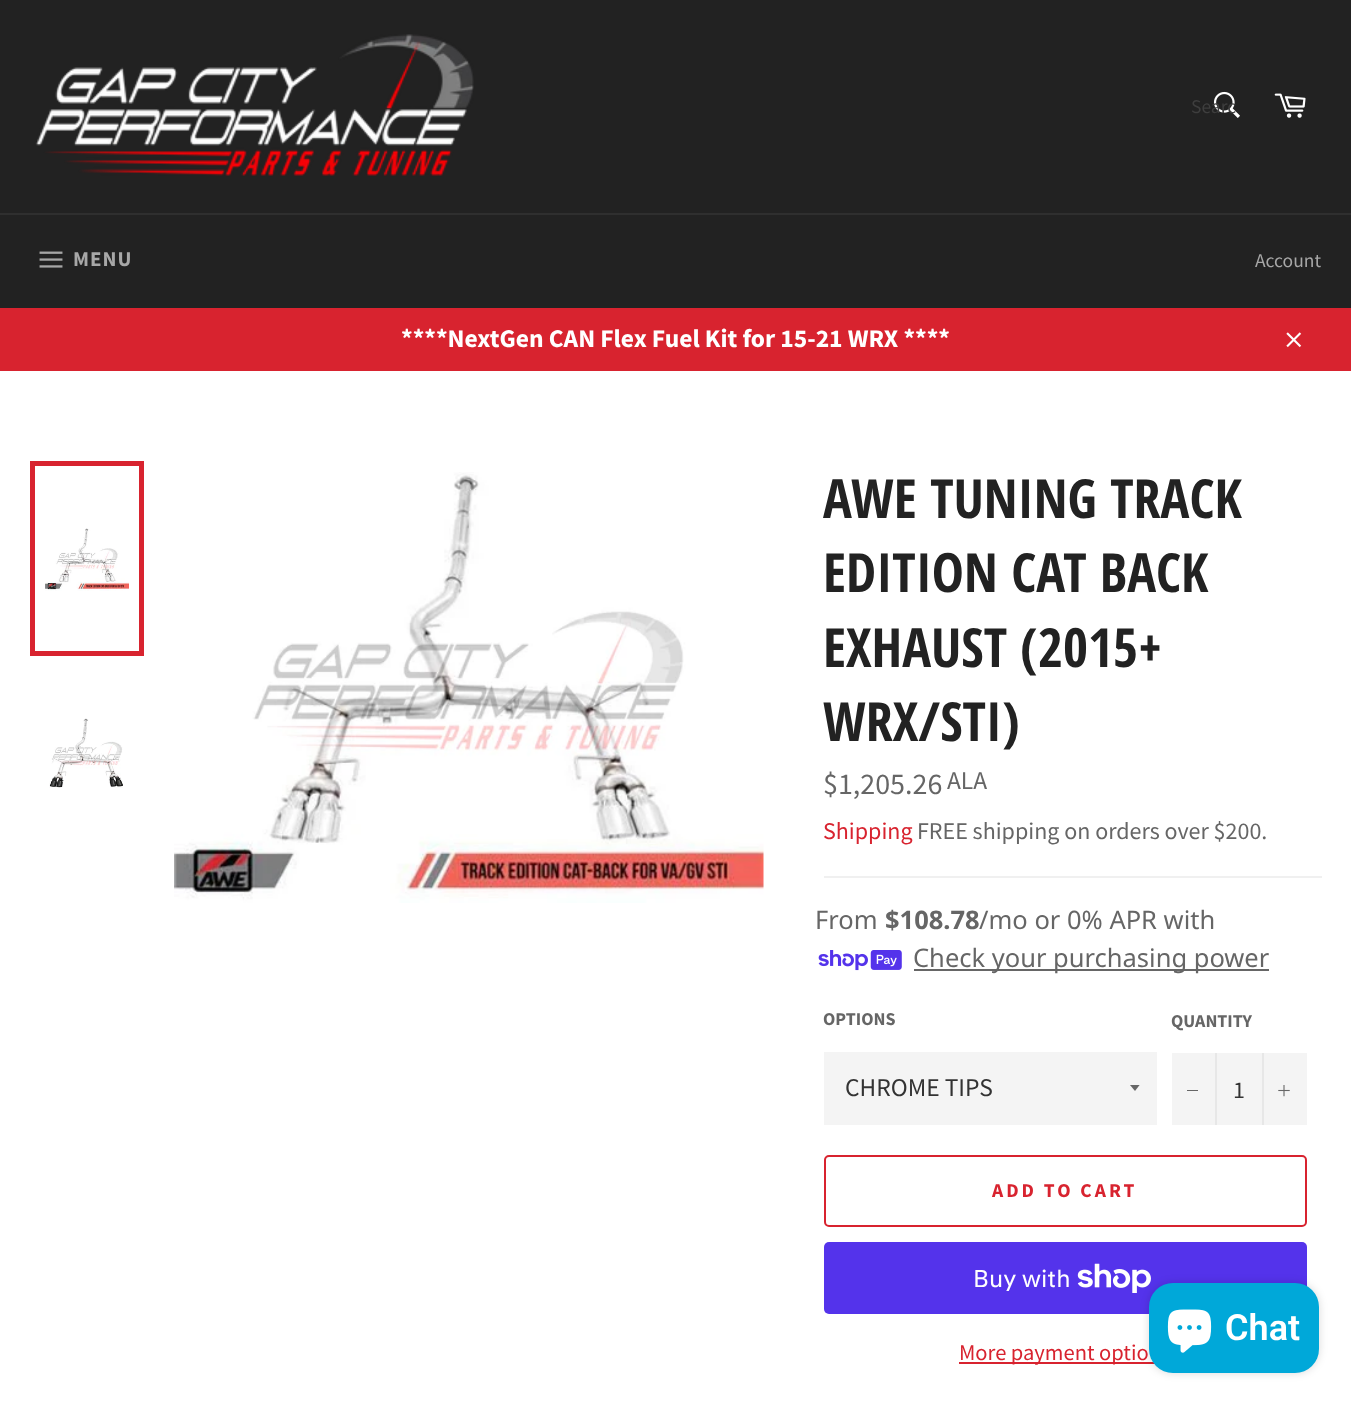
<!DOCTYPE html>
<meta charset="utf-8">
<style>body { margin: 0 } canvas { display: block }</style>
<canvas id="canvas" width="1351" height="1403"></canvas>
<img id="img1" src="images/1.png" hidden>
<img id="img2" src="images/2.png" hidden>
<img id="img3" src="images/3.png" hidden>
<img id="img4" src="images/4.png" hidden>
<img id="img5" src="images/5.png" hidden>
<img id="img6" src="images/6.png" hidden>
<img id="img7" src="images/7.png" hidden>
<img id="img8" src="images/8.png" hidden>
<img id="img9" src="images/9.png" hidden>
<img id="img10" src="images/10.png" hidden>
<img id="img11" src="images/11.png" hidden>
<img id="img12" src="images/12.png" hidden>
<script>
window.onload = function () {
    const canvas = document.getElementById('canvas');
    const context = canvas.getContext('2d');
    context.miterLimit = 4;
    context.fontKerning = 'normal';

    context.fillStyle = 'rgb(34, 34, 34)';
    context.fillRect(0, 0, 1351, 1403);
    context.drawImage(document.getElementById('img1'), 35, 34, 439, 142);
    context.drawImage(document.getElementById('img2'), 1213, 91, 27, 27);
    context.drawImage(document.getElementById('img3'), 1274, 93, 32, 25);
    context.fillStyle = 'rgb(47, 47, 47)';
    context.fillRect(0, 213, 1351, 2);
    context.drawImage(document.getElementById('img4'), 39, 251, 24, 17);
    context.fillStyle = 'rgb(216, 35, 47)';
    context.fillRect(0, 308, 1351, 63);
    context.drawImage(document.getElementById('img5'), 1286, 332, 16, 16);
    context.fillStyle = 'rgb(255, 255, 255)';
    context.fillRect(0, 371, 1351, 1032);
    context.drawImage(document.getElementById('img6'), 45, 528, 84, 63);
    context.strokeStyle = 'rgb(216, 35, 47)';
    context.lineWidth = 5;
    context.strokeRect(32.5, 463.5, 109, 190);
    context.drawImage(document.getElementById('img7'), 49, 718, 74, 70);
    context.drawImage(document.getElementById('img8'), 174, 472, 590, 431);
    context.fillStyle = 'rgb(240, 240, 240)';
    context.fillRect(824, 876, 498, 2);
    context.drawImage(document.getElementById('img9'), 818, 950, 84, 21);
    context.fillStyle = 'rgb(102, 102, 102)';
    context.fillRect(914, 969, 355, 2);
    context.fillStyle = 'rgb(244, 244, 244)';
    context.fillRect(824, 1052, 333, 73);
    context.save();
    context.beginPath();
    context.rect(1130, 1085, 12, 7);
    context.clip();
    context.fillStyle = 'rgb(102, 102, 102)';
    context.beginPath();
    context.moveTo(1129.5, 1084.5);
    context.lineTo(1135, 1091);
    context.lineTo(1140, 1084.5);
    context.closePath();
    context.fill();
    context.restore();
    context.fillRect(1172, 1053, 135, 72);
    context.fillStyle = 'rgb(231, 231, 231)';
    context.fillRect(1215, 1053, 2, 72);
    context.fillStyle = 'rgb(102, 102, 102)';
    context.fillRect(1187, 1090, 11, 1);
    context.fillStyle = 'rgb(231, 231, 231)';
    context.fillRect(1262, 1053, 2, 72);
    context.drawImage(document.getElementById('img10'), 1278, 1085, 12, 12);
    context.beginPath();
    context.roundRect(825, 1156, 481, 70, 4);
    context.lineWidth = 2;
    context.stroke();
    context.fillStyle = 'rgb(84, 51, 235)';
    context.beginPath();
    context.roundRect(824, 1242, 483, 72, 5);
    context.fill();
    context.drawImage(document.getElementById('img11'), 1077, 1263, 74, 30);
    context.fillStyle = 'rgb(216, 35, 47)';
    context.fillRect(959, 1362, 196, 2);
    context.fillStyle = 'rgba(0, 0, 0, 0.15)';
    context.filter = 'blur(4px)';
    context.beginPath();
    context.roundRect(1149, 1283, 170, 90, 24);
    context.fill();
    context.filter = 'none';
    context.fillStyle = 'rgb(0, 168, 217)';
    context.beginPath();
    context.roundRect(1149, 1283, 170, 90, 24);
    context.fill();
    context.drawImage(document.getElementById('img12'), 1167, 1309, 45, 44);
    context.font = '19.5px Source Sans Pro';
    context.fillStyle = 'rgb(62, 62, 62)';
    context.fillText('Searc', 1191, 113);
    context.letterSpacing = '1px';
    context.font = 'bold 21px Source Sans Pro';
    context.fillStyle = 'rgb(167, 167, 167)';
    context.fillText('MENU', 73, 266);
    context.letterSpacing = '0px';
    context.font = '19.5px Source Sans Pro';
    context.fillText('Account', 1255, 267);
    context.font = 'bold 25.5px Source Sans Pro';
    context.fillStyle = 'rgb(255, 255, 255)';
    context.fillText('****NextGen CAN Flex Fuel Kit for 15-21 WRX ****', 401, 347);
    context.font = 'bold 54px Open Sans Condensed';
    context.fillStyle = 'rgb(34, 34, 34)';
    context.fillText('AWE TUNING TRACK', 823, 518);
    context.fillText('EDITION CAT BACK', 823, 592);
    context.fillText('EXHAUST (2015+', 823, 667);
    context.fillText('WRX/STI)', 823, 741);
    context.font = '30px Source Sans Pro';
    context.fillStyle = 'rgb(102, 102, 102)';
    context.fillText('$1,205.26', 823, 794);
    context.font = '25.5px Source Sans Pro';
    context.fillText('ALA', 947, 789);
    context.font = '24px Source Sans Pro';
    context.fillStyle = 'rgb(216, 35, 47)';
    context.fillText('Shipping', 823, 839);
    context.fillStyle = 'rgb(102, 102, 102)';
    context.fillText('FREE shipping on orders over $200.', 917, 839);
    context.font = '25.5px Noto Sans';
    context.fillText('From', 815, 929);
    context.font = 'bold 25.5px Noto Sans';
    context.fillText('$108.78', 885, 929);
    context.font = '25.5px Noto Sans';
    context.fillText('/mo or 0% APR with', 979, 929);
    context.fillText('Check your purchasing power', 913, 967);
    context.font = 'bold 18px Source Sans Pro';
    context.fillText('OPTIONS', 823, 1025);
    context.font = '25.5px Source Sans Pro';
    context.fillStyle = 'rgb(51, 51, 51)';
    context.fillText('CHROME TIPS', 845, 1096);
    context.font = 'bold 18px Source Sans Pro';
    context.fillStyle = 'rgb(102, 102, 102)';
    context.fillText('QUANTITY', 1171, 1027);
    context.font = '24px Source Sans Pro';
    context.fillStyle = 'rgb(51, 51, 51)';
    context.fillText('1', 1233, 1098);
    context.letterSpacing = '3px';
    context.font = 'bold 19.5px Source Sans Pro';
    context.fillStyle = 'rgb(216, 35, 47)';
    context.fillText('ADD TO CART', 992, 1197);
    context.letterSpacing = '0px';
    context.font = '24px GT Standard';
    context.fillStyle = 'rgb(255, 255, 255)';
    context.fillText('Buy with', 973, 1287);
    context.font = '22.5px Source Sans Pro';
    context.fillStyle = 'rgb(216, 35, 47)';
    context.fillText('More payment optio', 959, 1360);
    context.font = '600 36px Roboto';
    context.fillStyle = 'rgb(255, 255, 255)';
    context.fillText('Chat', 1225, 1340);
};
</script>
